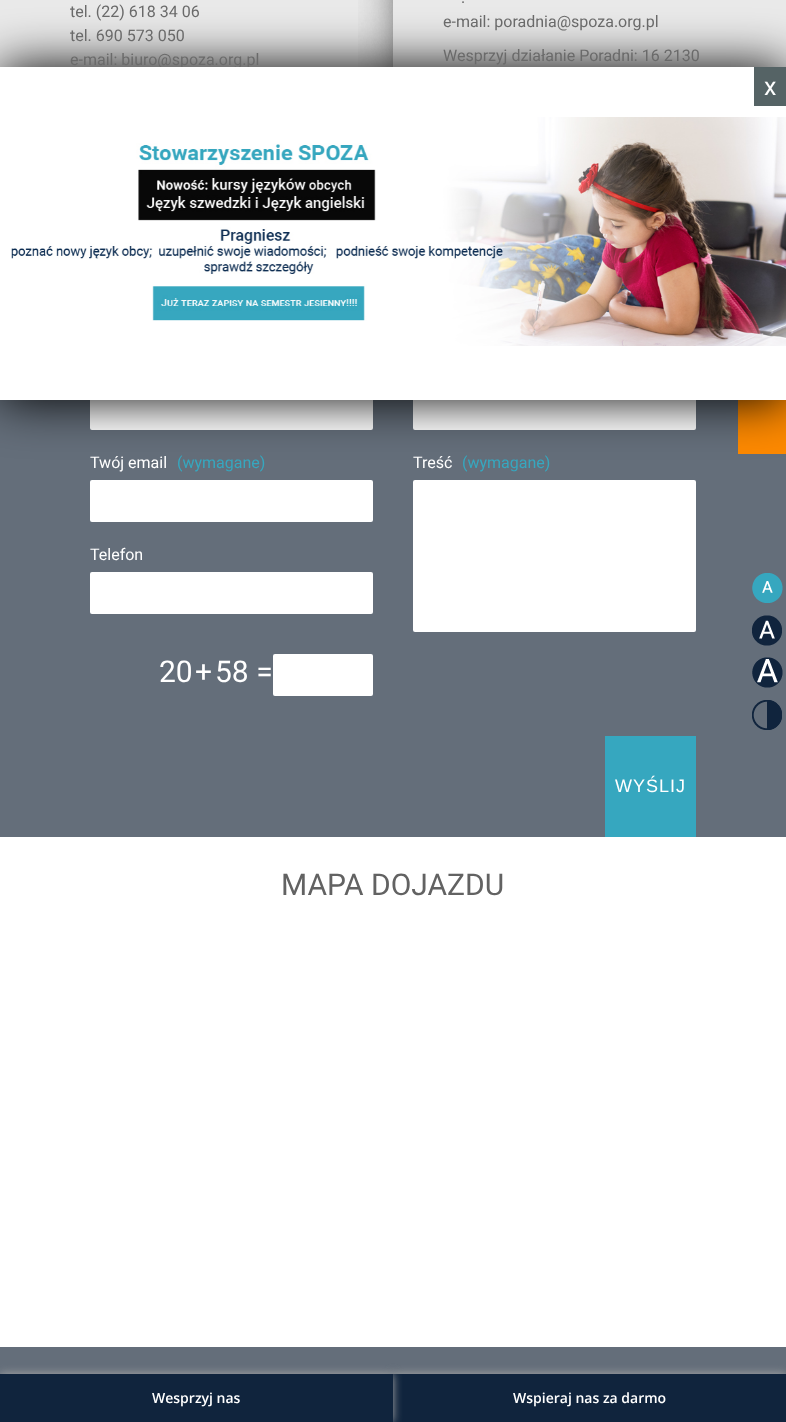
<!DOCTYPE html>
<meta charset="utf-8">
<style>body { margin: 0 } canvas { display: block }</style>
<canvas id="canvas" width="786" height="1422"></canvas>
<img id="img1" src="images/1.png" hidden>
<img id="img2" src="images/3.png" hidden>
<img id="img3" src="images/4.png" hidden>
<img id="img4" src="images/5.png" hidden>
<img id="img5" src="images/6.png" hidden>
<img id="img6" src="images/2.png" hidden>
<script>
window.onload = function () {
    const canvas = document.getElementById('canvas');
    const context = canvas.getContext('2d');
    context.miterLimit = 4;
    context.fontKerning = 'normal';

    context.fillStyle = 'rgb(255, 255, 255)';
    context.fillRect(0, 0, 786, 1422);
    context.fillStyle = 'rgb(233, 233, 233)';
    context.fillRect(0, 0, 786, 67);
    context.drawImage(document.getElementById('img1'), 358, 0, 35, 67);
    context.fillStyle = 'rgb(100, 110, 122)';
    context.fillRect(0, 400, 766, 437);
    context.fillStyle = 'rgb(255, 255, 255)';
    context.beginPath();
    context.roundRect(90, 388, 283, 42, 2);
    context.fill();
    context.beginPath();
    context.roundRect(90, 480, 283, 42, 2);
    context.fill();
    context.beginPath();
    context.roundRect(90, 572, 283, 42, 2);
    context.fill();
    context.beginPath();
    context.roundRect(273, 654, 100, 42, 2);
    context.fill();
    context.beginPath();
    context.roundRect(413, 388, 283, 42, 2);
    context.fill();
    context.beginPath();
    context.roundRect(413, 480, 283, 152, 2);
    context.fill();
    context.fillStyle = 'rgb(54, 167, 191)';
    context.fillRect(605, 736, 91, 101);
    context.fillStyle = 'rgb(100, 110, 122)';
    context.fillRect(766, 454, 20, 383);
    context.fillRect(0, 1347, 786, 27);
    context.fillStyle = 'rgb(253, 137, 0)';
    context.fillRect(738, 400, 48, 54);
    context.fillStyle = 'rgb(0, 0, 0)';
    context.filter = 'blur(25px)';
    context.beginPath();
    context.rect(0, 67, 786, 333);
    context.fill();
    context.filter = 'none';
    context.drawImage(document.getElementById('img2'), 752, 573, 31, 30);
    context.drawImage(document.getElementById('img3'), 752, 615, 30, 31);
    context.drawImage(document.getElementById('img4'), 752, 657, 31, 31);
    context.drawImage(document.getElementById('img5'), 752, 700, 30, 30);
    context.fillStyle = 'rgb(170, 170, 170)';
    context.filter = 'blur(5px)';
    context.beginPath();
    context.rect(393, 1374, 393, 48);
    context.fill();
    context.filter = 'none';
    context.fillStyle = 'rgb(16, 36, 61)';
    context.fillRect(393, 1374, 393, 48);
    context.fillStyle = 'rgb(170, 170, 170)';
    context.filter = 'blur(5px)';
    context.beginPath();
    context.rect(0, 1374, 393, 48);
    context.fill();
    context.filter = 'none';
    context.fillStyle = 'rgb(16, 36, 61)';
    context.fillRect(0, 1374, 393, 48);
    context.font = '16px Roboto';
    context.fillStyle = 'rgb(106, 106, 106)';
    context.fillText('tel. (22) 618 34 06', 70, 17);
    context.fillText('tel. 690 573 050', 70, 41);
    context.fillText('e-mail: biuro@spoza.org.pl', 70, 65);
    context.fillText('.', 461, 3);
    context.fillText('e-mail: poradnia@spoza.org.pl', 443, 27);
    context.fillText('Wesprzyj działanie Poradni: 16 2130', 443, 61);
    context.fillStyle = 'rgb(255, 255, 255)';
    context.fillText('Twój email', 90, 468);
    context.fillStyle = 'rgb(54, 167, 191)';
    context.fillText('(wymagane)', 177, 468);
    context.fillStyle = 'rgb(255, 255, 255)';
    context.fillText('Telefon', 90, 560);
    context.font = '30px Roboto';
    context.fillText('20', 159, 682);
    context.fillText('+', 195, 682);
    context.fillText('58 =', 215, 682);
    context.font = '16px Roboto';
    context.fillText('Treść', 413, 468);
    context.fillStyle = 'rgb(54, 167, 191)';
    context.fillText('(wymagane)', 462, 468);
    context.letterSpacing = '1px';
    context.font = '18px Liberation Sans';
    context.fillStyle = 'rgb(255, 255, 255)';
    context.fillText('WYŚLIJ', 615, 792);
    context.letterSpacing = '0px';
    context.font = '30px Roboto';
    context.fillStyle = 'rgb(98, 98, 98)';
    context.fillText('MAPA DOJAZDU', 281, 895);
    context.fillStyle = 'rgb(255, 255, 255)';
    context.fillRect(0, 67, 786, 333);
    context.fillStyle = 'rgb(85, 99, 101)';
    context.fillRect(754, 67, 32, 39);
    context.font = '25px Roboto';
    context.fillStyle = 'rgb(255, 255, 255)';
    context.fillText('x', 764, 95);
    context.drawImage(document.getElementById('img6'), 11, 117, 775, 229);
    context.font = '600 14px Open Sans';
    context.fillText('Wesprzyj nas', 152, 1403);
    context.fillText('Wspieraj nas za darmo', 513, 1403);
};
</script>
